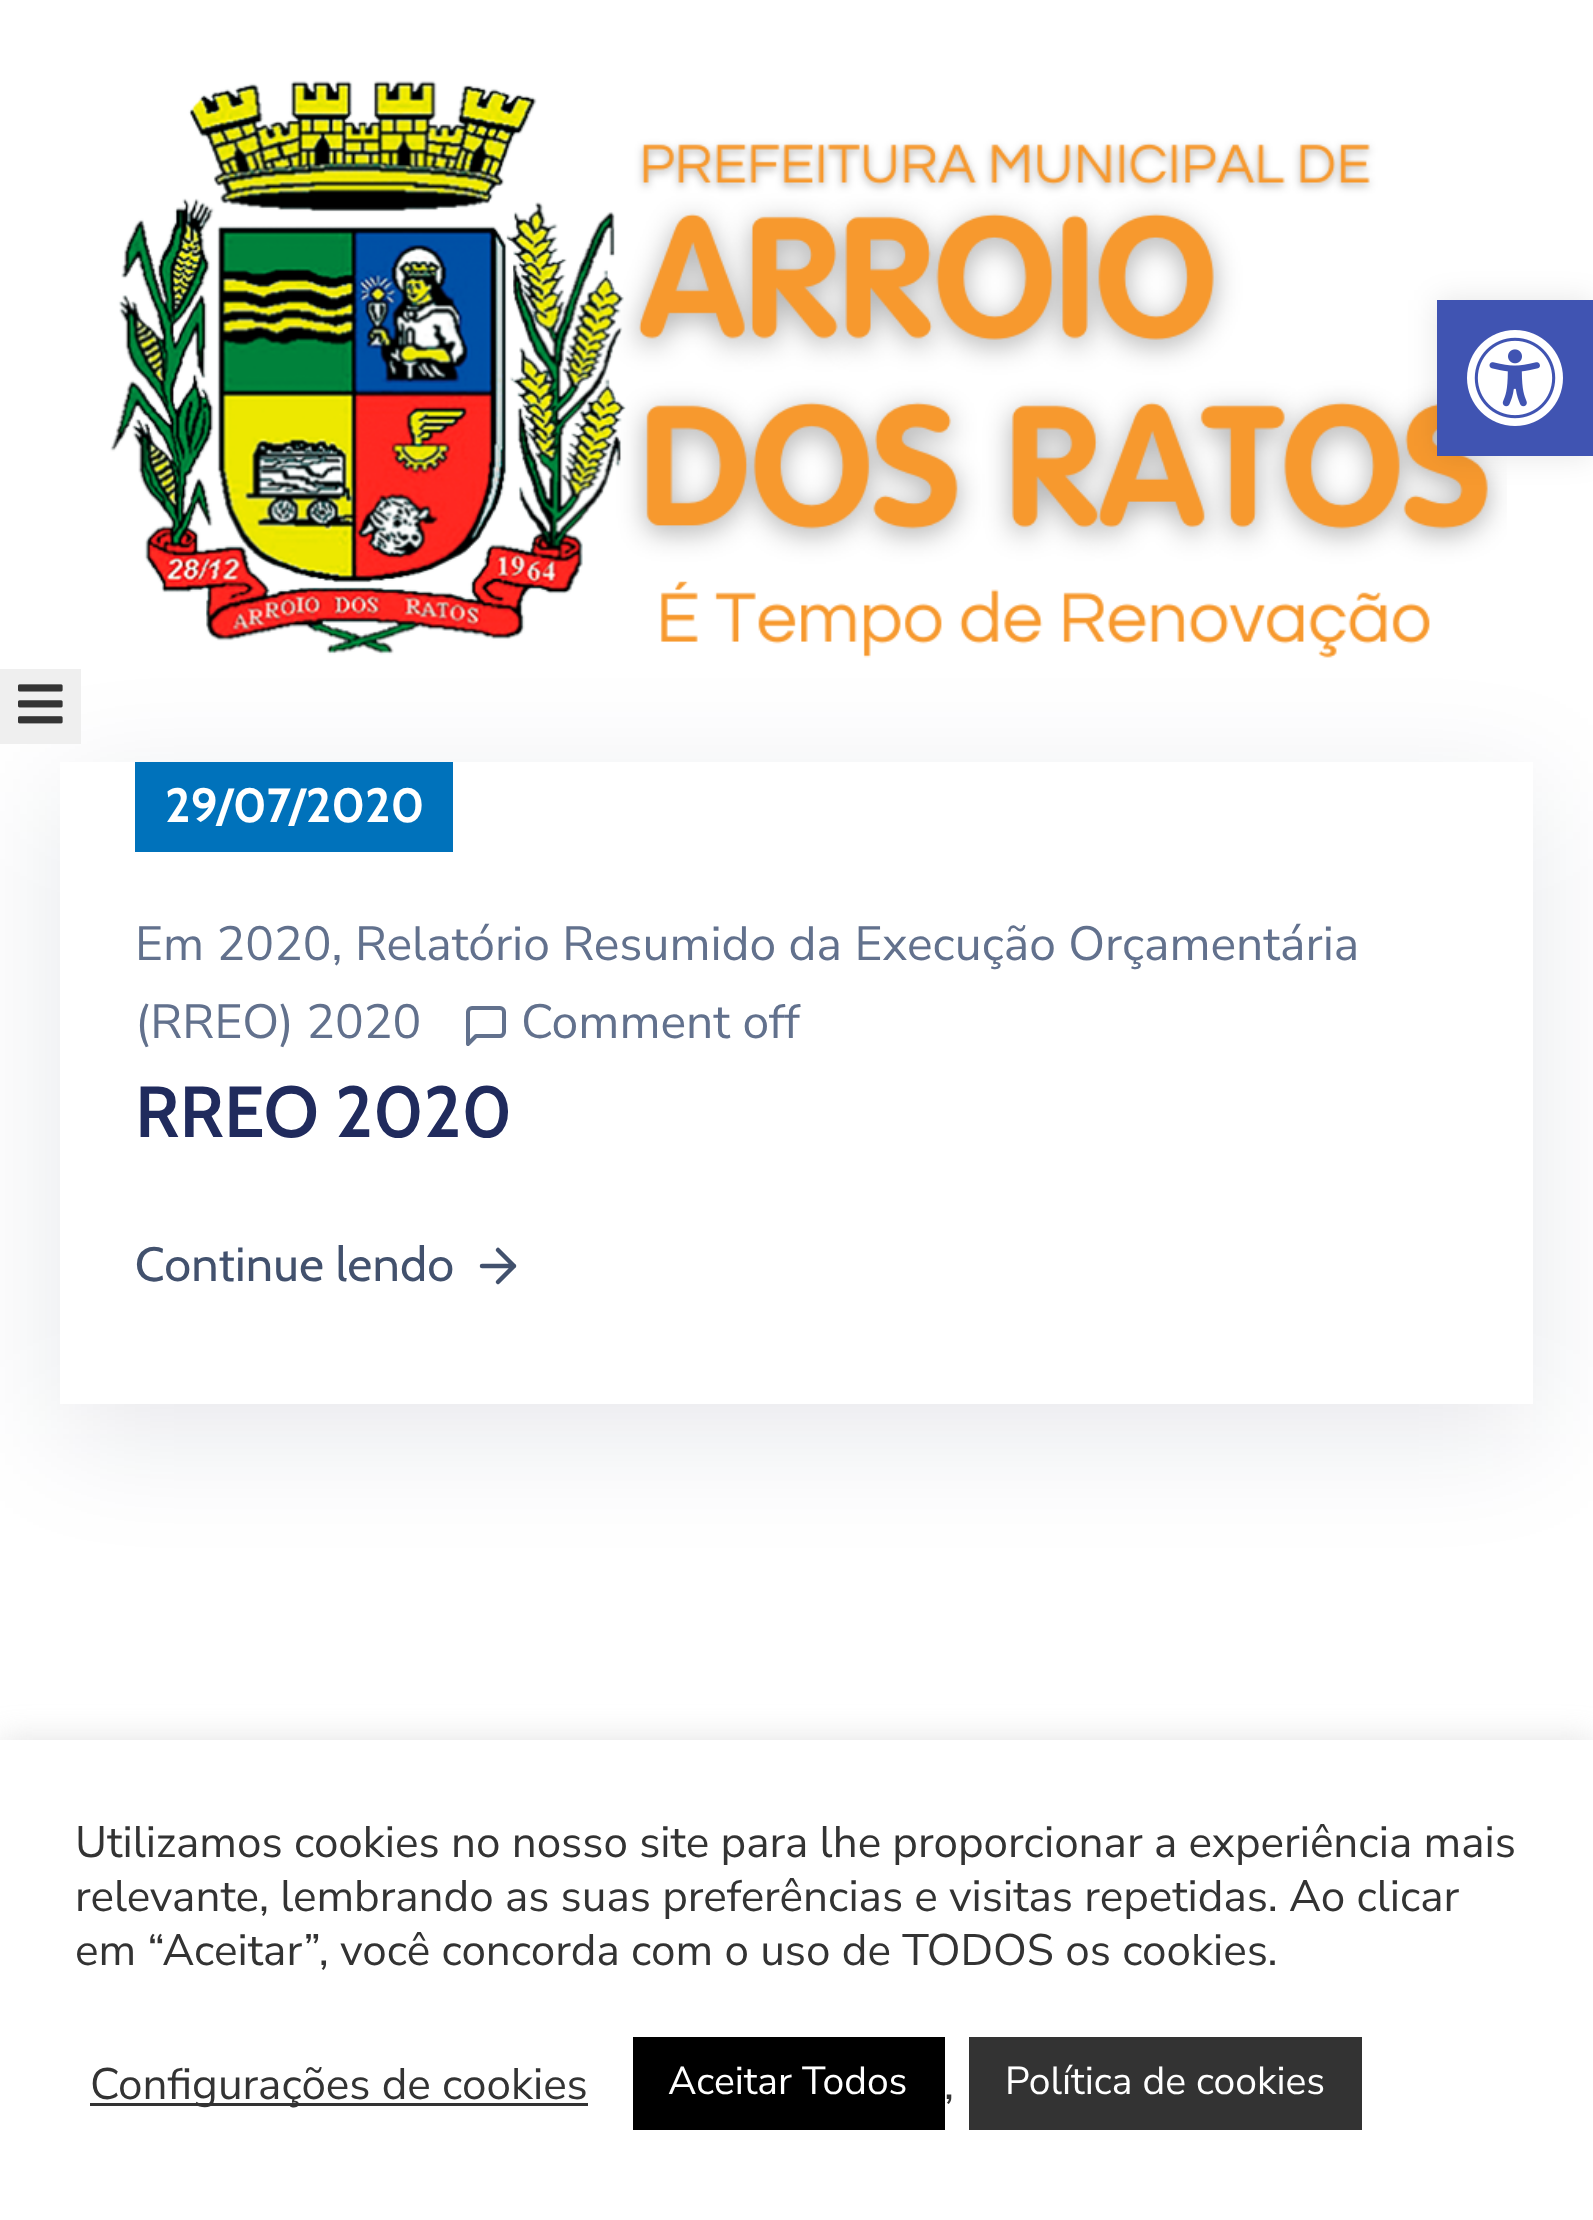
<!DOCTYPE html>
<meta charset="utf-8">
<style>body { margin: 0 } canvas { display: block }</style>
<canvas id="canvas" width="1593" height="2220"></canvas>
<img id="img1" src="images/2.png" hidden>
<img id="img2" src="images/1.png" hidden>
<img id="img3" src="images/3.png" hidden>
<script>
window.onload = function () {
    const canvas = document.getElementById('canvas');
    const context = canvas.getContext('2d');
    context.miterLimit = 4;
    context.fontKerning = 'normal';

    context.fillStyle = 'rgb(255, 255, 255)';
    context.fillRect(0, 0, 1593, 2220);
    context.save();
    context.beginPath();
    context.moveTo(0, 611);
    context.lineTo(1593, 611);
    context.lineTo(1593, 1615);
    context.lineTo(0, 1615);
    context.closePath();
    context.moveTo(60, 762);
    context.lineTo(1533, 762);
    context.lineTo(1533, 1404);
    context.lineTo(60, 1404);
    context.closePath();
    context.clip('evenodd');
    context.fillStyle = 'rgba(6, 22, 58, 0.1)';
    context.filter = 'blur(60px)';
    context.beginPath();
    context.rect(60, 792, 1473, 642);
    context.fill();
    context.filter = 'none';
    context.restore();
    context.drawImage(document.getElementById('img1'), 110, 80, 1397, 578);
    context.fillStyle = 'rgba(0, 0, 0, 0.1)';
    context.filter = 'blur(15px)';
    context.beginPath();
    context.rect(1437, 300, 156, 156);
    context.fill();
    context.filter = 'none';
    context.fillStyle = 'rgb(64, 84, 178)';
    context.fillRect(1437, 300, 156, 156);
    context.drawImage(document.getElementById('img2'), 1467, 330, 96, 96);
    context.fillStyle = 'rgb(239, 239, 239)';
    context.fillRect(0, 669, 81, 75);
    context.drawImage(document.getElementById('img3'), 18, 684, 45, 40);
    context.fillStyle = 'rgb(0, 114, 187)';
    context.fillRect(135, 762, 318, 90);
    context.beginPath();
    context.moveTo(504, 1032);
    context.bezierCurveTo(504, 1034, 502, 1036, 500, 1036);
    context.lineTo(476, 1036);
    context.lineTo(468, 1044);
    context.lineTo(468, 1012);
    context.bezierCurveTo(468, 1010, 470, 1008, 472, 1008);
    context.lineTo(500, 1008);
    context.bezierCurveTo(502, 1008, 504, 1010, 504, 1012);
    context.closePath();
    context.strokeStyle = 'rgb(98, 113, 141)';
    context.lineWidth = 4;
    context.lineCap = 'round';
    context.lineJoin = 'round';
    context.stroke();
    context.beginPath();
    context.moveTo(482, 1266);
    context.lineTo(514, 1266);
    context.moveTo(498, 1250);
    context.lineTo(514, 1266);
    context.lineTo(498, 1282);
    context.strokeStyle = 'rgb(66, 81, 109)';
    context.lineWidth = 4.5;
    context.stroke();
    context.fillStyle = 'rgba(172, 171, 171, 0.3)';
    context.filter = 'blur(15px)';
    context.beginPath();
    context.rect(0, 1737, 1593, 480);
    context.fill();
    context.filter = 'none';
    context.fillStyle = 'rgb(255, 255, 255)';
    context.fillRect(0, 1740, 1593, 480);
    context.fillStyle = 'rgb(51, 51, 51)';
    context.fillRect(90, 2103, 498, 3);
    context.fillStyle = 'rgb(0, 0, 0)';
    context.fillRect(633, 2037, 312, 93);
    context.fillStyle = 'rgb(51, 51, 51)';
    context.fillRect(969, 2037, 393, 93);
    context.font = 'bold 48px Cabin';
    context.fillStyle = 'rgb(255, 255, 255)';
    context.fillText('29/07/2020', 165, 822);
    context.font = '48px Nunito Sans';
    context.fillStyle = 'rgb(98, 113, 141)';
    context.fillText('Em 2020‚ Relatório Resumido da Execução Orçamentária', 135, 960);
    context.fillText('(RREO) 2020', 135, 1038);
    context.fillText('Comment off', 521, 1038);
    context.font = '600 72px Cabin';
    context.fillStyle = 'rgb(32, 43, 93)';
    context.fillText('RREO 2020', 135, 1137);
    context.letterSpacing = '0.6px';
    context.font = '48px Cabin';
    context.fillStyle = 'rgb(66, 81, 109)';
    context.fillText('Continue lendo', 135, 1281);
    context.letterSpacing = '0px';
    context.font = '44px Nunito Sans';
    context.fillStyle = 'rgb(51, 51, 51)';
    context.fillText('Utilizamos cookies no nosso site para lhe proporcionar a experiência mais', 75, 1857);
    context.wordSpacing = '-0.1px';
    context.fillText('relevante, lembrando as suas preferências e visitas repetidas. Ao clicar', 75, 1911);
    context.wordSpacing = '0px';
    context.fillText('em “Aceitar”, você concorda com o uso de TODOS os cookies.', 75, 1965);
    context.fillText('Configurações de cookies', 90, 2099);
    context.font = '39px Nunito Sans';
    context.fillStyle = 'rgb(255, 255, 255)';
    context.fillText('Aceitar Todos', 668, 2094);
    context.fillText('Política de cookies', 1005, 2094);
    context.font = '44px Nunito Sans';
    context.fillStyle = 'rgb(51, 51, 51)';
    context.fillText(',', 944, 2099);
};
</script>
